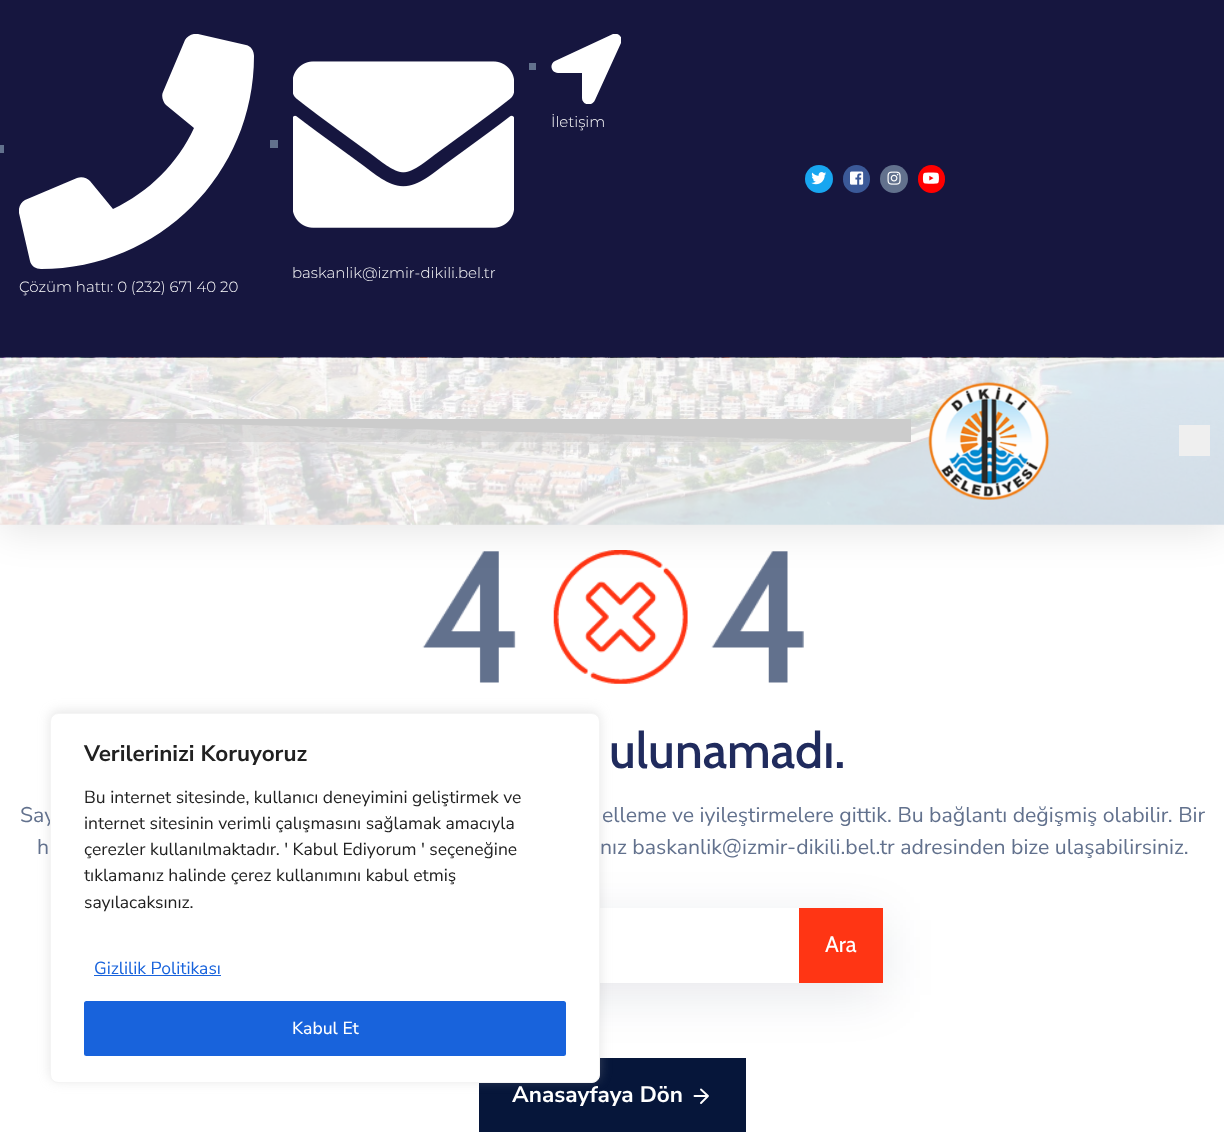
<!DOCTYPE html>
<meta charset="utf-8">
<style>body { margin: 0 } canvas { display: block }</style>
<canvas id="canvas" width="1224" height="1132"></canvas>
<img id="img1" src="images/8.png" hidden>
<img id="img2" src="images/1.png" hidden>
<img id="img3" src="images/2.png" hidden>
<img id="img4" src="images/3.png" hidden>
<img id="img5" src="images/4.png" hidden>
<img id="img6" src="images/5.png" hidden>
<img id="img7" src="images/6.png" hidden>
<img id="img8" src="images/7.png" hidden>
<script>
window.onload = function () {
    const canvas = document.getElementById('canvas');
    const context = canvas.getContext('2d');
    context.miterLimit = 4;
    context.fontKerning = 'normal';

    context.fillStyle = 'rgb(255, 255, 255)';
    context.fillRect(0, 0, 1224, 1132);
    context.drawImage(document.getElementById('img1'), 422, 550, 382, 134);
    context.fillStyle = 'rgba(0, 0, 0, 0.1)';
    context.filter = 'blur(19px)';
    context.beginPath();
    context.rect(0, 6, 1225, 525);
    context.fill();
    context.filter = 'none';
    context.fillStyle = 'rgb(22, 22, 63)';
    context.fillRect(0, 0, 1224, 358);
    context.fillStyle = 'rgb(98, 113, 141)';
    context.fillRect(529, 63, 7, 7);
    context.save();
    context.beginPath();
    context.rect(551, 34, 70, 70);
    context.clip();
    context.fillStyle = 'rgb(255, 255, 255)';
    context.beginPath();
    context.moveTo(613, 34);
    context.lineTo(555, 61);
    context.bezierCurveTo(549, 64, 551, 73, 558, 73);
    context.lineTo(582, 73);
    context.lineTo(582, 98);
    context.bezierCurveTo(582, 105, 592, 107, 595, 100);
    context.lineTo(621, 43);
    context.bezierCurveTo(624, 38, 618, 32, 613, 34);
    context.closePath();
    context.fill();
    context.restore();
    context.fillRect(270, 140, 8, 8);
    context.drawImage(document.getElementById('img2'), 293, 61, 221, 167);
    context.fillRect(0, 145, 4, 8);
    context.save();
    context.beginPath();
    context.rect(19, 34, 236, 236);
    context.clip();
    context.fillStyle = 'rgb(255, 255, 255)';
    context.beginPath();
    context.moveTo(246, 45);
    context.lineTo(198, 34);
    context.bezierCurveTo(193, 33, 187, 36, 185, 40);
    context.lineTo(163, 92);
    context.bezierCurveTo(161, 96, 163, 102, 166, 105);
    context.lineTo(194, 128);
    context.bezierCurveTo(178, 163, 149, 192, 113, 209);
    context.lineTo(90, 181);
    context.bezierCurveTo(87, 178, 82, 176, 77, 178);
    context.lineTo(25, 200);
    context.bezierCurveTo(21, 202, 18, 208, 19, 213);
    context.lineTo(30, 261);
    context.bezierCurveTo(31, 266, 36, 269, 41, 269);
    context.bezierCurveTo(159, 269, 254, 174, 254, 56);
    context.bezierCurveTo(254, 51, 251, 46, 246, 45);
    context.closePath();
    context.fill();
    context.restore();
    context.fillStyle = 'rgb(24, 166, 240)';
    context.beginPath();
    context.arc(819, 179, 14, 0, 2 * Math.PI);
    context.fill();
    context.drawImage(document.getElementById('img3'), 811, 172, 16, 13);
    context.fillStyle = 'rgb(59, 89, 152)';
    context.beginPath();
    context.roundRect(843, 165, 27, 28, 13.5);
    context.fill();
    context.drawImage(document.getElementById('img4'), 850, 171, 14, 14);
    context.fillStyle = 'rgb(98, 113, 141)';
    context.beginPath();
    context.arc(894, 179, 14, 0, 2 * Math.PI);
    context.fill();
    context.drawImage(document.getElementById('img5'), 887, 171, 14, 14);
    context.fillStyle = 'rgb(255, 0, 0)';
    context.beginPath();
    context.roundRect(918, 165, 27, 28, 13.5);
    context.fill();
    context.drawImage(document.getElementById('img6'), 922, 172, 17, 12);
    context.drawImage(document.getElementById('img7'), 0, 357, 1224, 168);
    context.fillStyle = 'rgb(204, 204, 204)';
    context.beginPath();
    context.moveTo(19, 419);
    context.lineTo(911, 419);
    context.lineTo(911, 442);
    context.closePath();
    context.fill();
    context.fillStyle = 'rgba(204, 204, 204, 0.5)';
    context.fillRect(19, 419, 888, 23);
    context.fillStyle = 'rgba(204, 204, 204, 0.25)';
    context.beginPath();
    context.moveTo(911, 419);
    context.lineTo(19, 419);
    context.lineTo(19, 463);
    context.lineTo(911, 442);
    context.closePath();
    context.fill();
    context.drawImage(document.getElementById('img8'), 928, 382, 122, 118);
    context.fillStyle = 'rgb(239, 239, 239)';
    context.fillRect(1179, 425, 31, 31);
    context.fillStyle = 'rgba(6, 22, 58, 0.1)';
    context.filter = 'blur(25px)';
    context.beginPath();
    context.rect(343, 920, 540, 75);
    context.fill();
    context.filter = 'none';
    context.fillStyle = 'rgb(255, 255, 255)';
    context.fillRect(600, 908, 199, 75);
    context.fillStyle = 'rgb(255, 53, 20)';
    context.fillRect(799, 908, 84, 75);
    context.fillStyle = 'rgb(6, 22, 58)';
    context.fillRect(479, 1058, 267, 74);
    context.beginPath();
    context.moveTo(694.5, 1096);
    context.lineTo(708, 1096);
    context.moveTo(701, 1089.5);
    context.lineTo(708, 1096);
    context.lineTo(701, 1103);
    context.strokeStyle = 'rgb(255, 255, 255)';
    context.lineWidth = 1.9;
    context.lineCap = 'round';
    context.lineJoin = 'round';
    context.stroke();
    context.fillStyle = 'rgba(172, 171, 171, 0.3)';
    context.filter = 'blur(6px)';
    context.beginPath();
    context.roundRect(50, 711, 550, 370, 8);
    context.fill();
    context.filter = 'none';
    context.font = '300 15px Montserrat';
    context.fillStyle = 'rgb(255, 255, 255)';
    context.fillText('İletişim', 551, 127);
    context.fillText('baskanlik@izmir-dikili.bel.tr', 292, 278);
    context.fillText('Çözüm hattı: 0 (232) 671 40 20', 19, 292);
    context.font = '500 50px Cabin';
    context.fillStyle = 'rgb(32, 43, 93)';
    context.fillText('ulunamadı.', 609, 768);
    context.font = '21.25px Nunito Sans';
    context.fillStyle = 'rgb(98, 113, 141)';
    context.fillText('Say', 20, 822);
    context.fillText('elleme ve iyileştirmelere gittik. Bu bağlantı değişmiş olabilir. Bir', 602, 822);
    context.fillText('h', 37, 854);
    context.fillText('nız baskanlik@izmir-dikili.bel.tr adresinden bize ulaşabilirsiniz.', 600, 854);
    context.font = '22.5px Cabin';
    context.fillStyle = 'rgb(255, 255, 255)';
    context.fillText('Ara', 825, 952);
    context.font = 'bold 22.5px Nunito Sans';
    context.fillText('Anasayfaya Dön', 512, 1102);
    context.beginPath();
    context.roundRect(50.5, 713.5, 549, 369, 7.5);
    context.fill();
    context.strokeStyle = 'rgb(244, 244, 244)';
    context.lineWidth = 1;
    context.lineJoin = 'miter';
    context.stroke();
    context.fillStyle = 'rgb(33, 33, 33)';
    context.fillText('Verilerinizi Koruyoruz', 84, 761);
    context.font = '17.5px Nunito Sans';
    context.fillText('Bu internet sitesinde, kullanıcı deneyimini geliştirmek ve', 84, 803);
    context.fillText('internet sitesinin verimli çalışmasını sağlamak amacıyla', 84, 829);
    context.fillText('çerezler kullanılmaktadır. \' Kabul Ediyorum \' seçeneğine', 84, 855);
    context.fillText('tıklamanız halinde çerez kullanımını kabul etmiş', 84, 881);
    context.fillText('sayılacaksınız.', 84, 908);
    context.fillStyle = 'rgb(24, 99, 220)';
    context.fillText('Gizlilik Politikası', 94, 974);
    context.fillRect(94, 975, 127, 1);
    context.beginPath();
    context.roundRect(85.5, 1002.5, 479, 52, 1);
    context.fill();
    context.strokeStyle = 'rgb(24, 99, 220)';
    context.lineWidth = 3;
    context.stroke();
    context.font = '500 17.5px Nunito Sans';
    context.fillStyle = 'rgb(255, 255, 255)';
    context.fillText('Kabul Et', 292, 1034);
};
</script>
